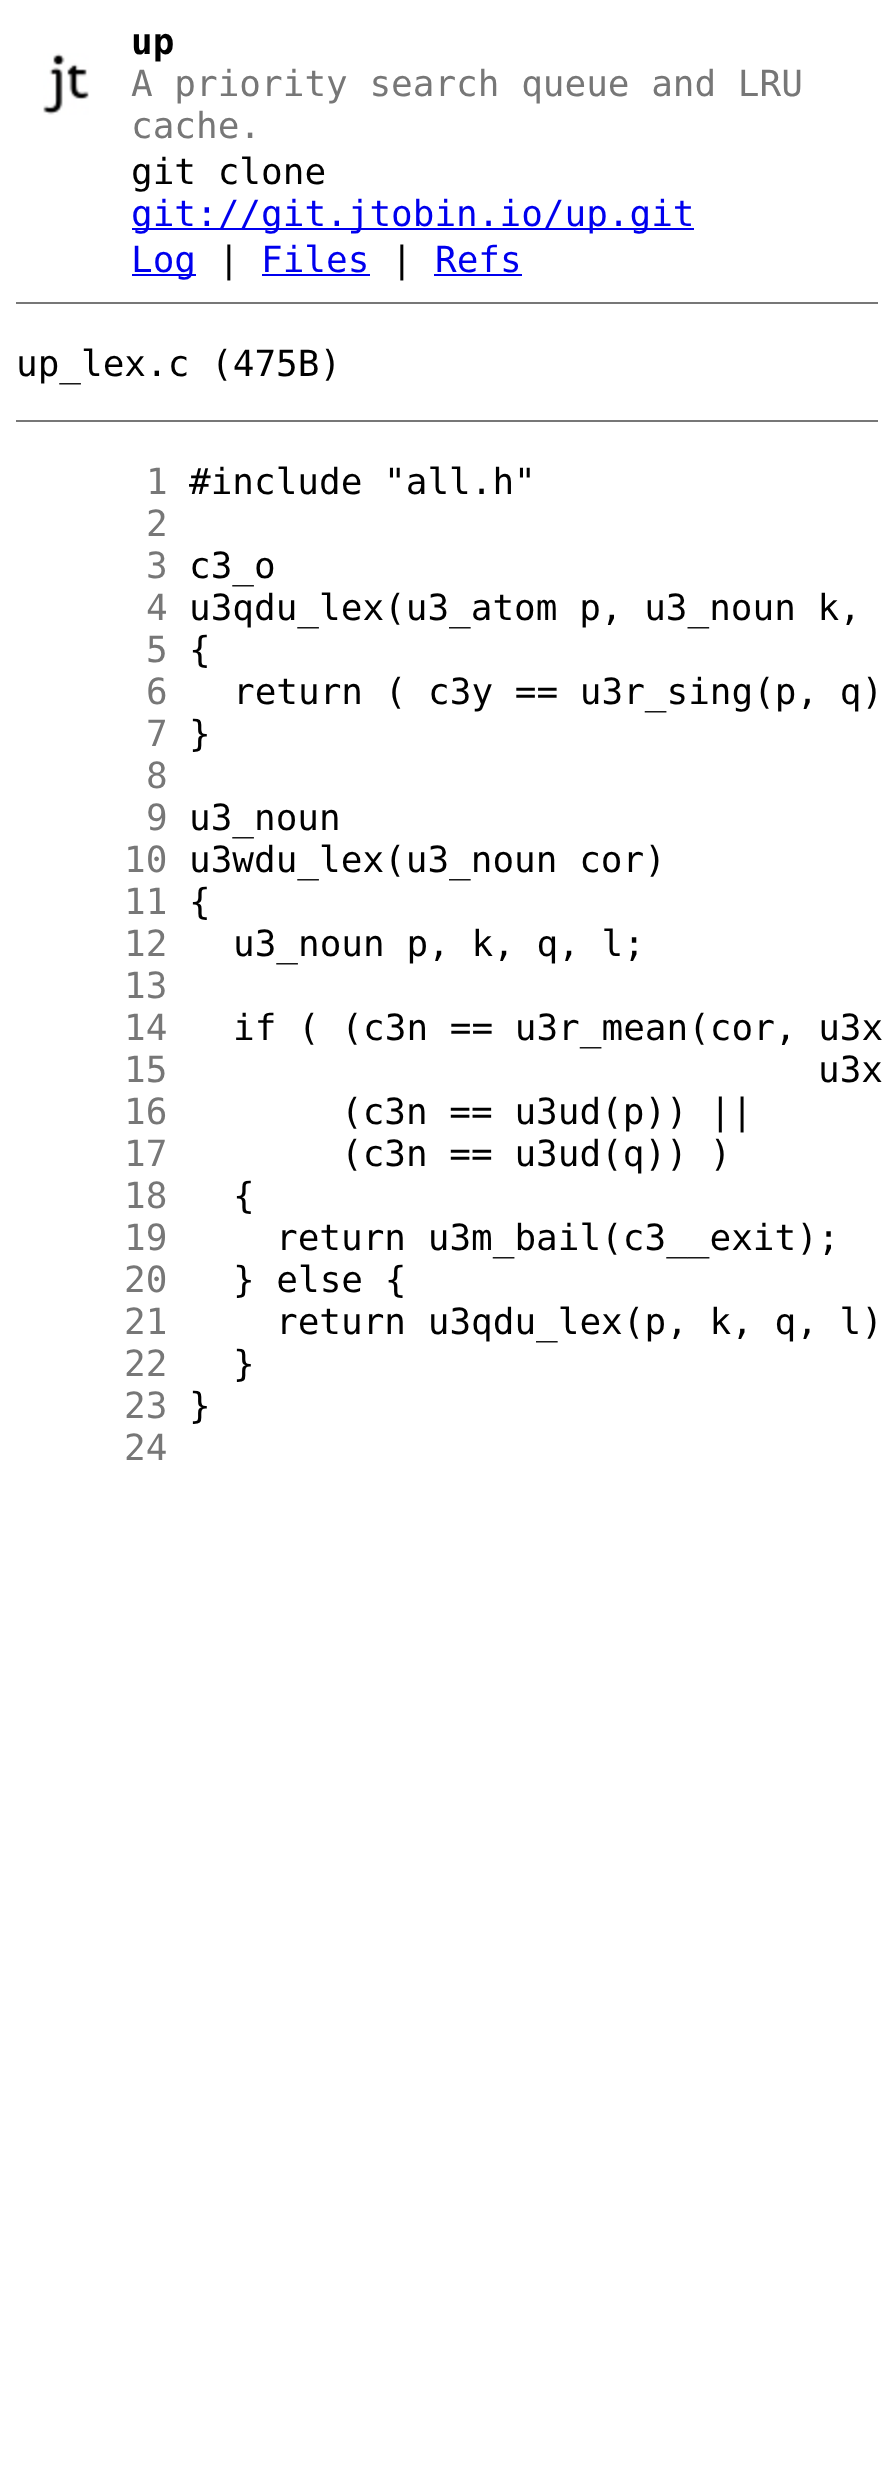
<!DOCTYPE html>
<meta charset="utf-8">
<style>body { margin: 0 } canvas { display: block }</style>
<canvas id="canvas" width="893" height="2488"></canvas>
<img id="img1" src="images/1.png" hidden>
<script>
window.onload = function () {
    const canvas = document.getElementById('canvas');
    const context = canvas.getContext('2d');
    context.miterLimit = 4;
    context.fontKerning = 'normal';

    context.fillStyle = 'rgb(255, 255, 255)';
    context.fillRect(0, 0, 893, 2488);
    context.drawImage(document.getElementById('img1'), 43, 53, 46, 62);
    context.fillStyle = 'rgb(0, 0, 238)';
    context.fillRect(132, 228, 562, 2);
    context.fillRect(132, 274, 64, 2);
    context.fillRect(262, 274, 108, 2);
    context.fillRect(434, 274, 88, 2);
    context.fillStyle = 'rgb(119, 119, 119)';
    context.fillRect(16, 302, 862, 2);
    context.fillRect(16, 420, 862, 2);
    context.font = 'bold 36px DejaVu Sans Mono';
    context.fillStyle = 'rgb(0, 0, 0)';
    context.fillText('up', 131, 54);
    context.font = '36px DejaVu Sans Mono';
    context.fillStyle = 'rgb(119, 119, 119)';
    context.fillText('A priority search queue and LRU', 131, 96);
    context.fillText('cache.', 131, 138);
    context.fillStyle = 'rgb(0, 0, 0)';
    context.fillText('git clone', 131, 184);
    context.fillStyle = 'rgb(0, 0, 238)';
    context.fillText('git://git.jtobin.io/up.git', 131, 226);
    context.fillText('Log', 131, 272);
    context.fillStyle = 'rgb(0, 0, 0)';
    context.fillText('|', 218, 272);
    context.fillStyle = 'rgb(0, 0, 238)';
    context.fillText('Files', 261, 272);
    context.fillStyle = 'rgb(0, 0, 0)';
    context.fillText('|', 391, 272);
    context.fillStyle = 'rgb(0, 0, 238)';
    context.fillText('Refs', 435, 272);
    context.fillStyle = 'rgb(0, 0, 0)';
    context.fillText('up_lex.c (475B)', 16, 376);
    context.fillStyle = 'rgb(119, 119, 119)';
    context.fillText('1', 146, 494);
    context.fillStyle = 'rgb(0, 0, 0)';
    context.fillText('#include "all.h"', 189, 494);
    context.fillStyle = 'rgb(119, 119, 119)';
    context.fillText('2', 146, 536);
    context.fillText('3', 146, 578);
    context.fillStyle = 'rgb(0, 0, 0)';
    context.fillText('c3_o', 189, 578);
    context.fillStyle = 'rgb(119, 119, 119)';
    context.fillText('4', 146, 620);
    context.fillStyle = 'rgb(0, 0, 0)';
    context.fillText('u3qdu_lex(u3_atom p, u3_noun k,', 189, 620);
    context.fillStyle = 'rgb(119, 119, 119)';
    context.fillText('5', 146, 662);
    context.fillStyle = 'rgb(0, 0, 0)';
    context.fillText('{', 189, 662);
    context.fillStyle = 'rgb(119, 119, 119)';
    context.fillText('6', 146, 704);
    context.fillStyle = 'rgb(0, 0, 0)';
    context.fillText('return ( c3y == u3r_sing(p, q)', 233, 704);
    context.fillStyle = 'rgb(119, 119, 119)';
    context.fillText('7', 146, 746);
    context.fillStyle = 'rgb(0, 0, 0)';
    context.fillText('}', 189, 746);
    context.fillStyle = 'rgb(119, 119, 119)';
    context.fillText('8', 146, 788);
    context.fillText('9', 146, 830);
    context.fillStyle = 'rgb(0, 0, 0)';
    context.fillText('u3_noun', 189, 830);
    context.fillStyle = 'rgb(119, 119, 119)';
    context.fillText('10', 124, 872);
    context.fillStyle = 'rgb(0, 0, 0)';
    context.fillText('u3wdu_lex(u3_noun cor)', 189, 872);
    context.fillStyle = 'rgb(119, 119, 119)';
    context.fillText('11', 124, 914);
    context.fillStyle = 'rgb(0, 0, 0)';
    context.fillText('{', 189, 914);
    context.fillStyle = 'rgb(119, 119, 119)';
    context.fillText('12', 124, 956);
    context.fillStyle = 'rgb(0, 0, 0)';
    context.fillText('u3_noun p, k, q, l;', 233, 956);
    context.fillStyle = 'rgb(119, 119, 119)';
    context.fillText('13', 124, 998);
    context.fillText('14', 124, 1040);
    context.fillStyle = 'rgb(0, 0, 0)';
    context.fillText('if ( (c3n == u3r_mean(cor, u3x', 233, 1040);
    context.fillStyle = 'rgb(119, 119, 119)';
    context.fillText('15', 124, 1082);
    context.fillStyle = 'rgb(0, 0, 0)';
    context.fillText('u3x', 818, 1082);
    context.fillStyle = 'rgb(119, 119, 119)';
    context.fillText('16', 124, 1124);
    context.fillStyle = 'rgb(0, 0, 0)';
    context.fillText('(c3n == u3ud(p)) ||', 341, 1124);
    context.fillStyle = 'rgb(119, 119, 119)';
    context.fillText('17', 124, 1166);
    context.fillStyle = 'rgb(0, 0, 0)';
    context.fillText('(c3n == u3ud(q)) )', 341, 1166);
    context.fillStyle = 'rgb(119, 119, 119)';
    context.fillText('18', 124, 1208);
    context.fillStyle = 'rgb(0, 0, 0)';
    context.fillText('{', 233, 1208);
    context.fillStyle = 'rgb(119, 119, 119)';
    context.fillText('19', 124, 1250);
    context.fillStyle = 'rgb(0, 0, 0)';
    context.fillText('return u3m_bail(c3__exit);', 276, 1250);
    context.fillStyle = 'rgb(119, 119, 119)';
    context.fillText('20', 124, 1292);
    context.fillStyle = 'rgb(0, 0, 0)';
    context.fillText('} else {', 233, 1292);
    context.fillStyle = 'rgb(119, 119, 119)';
    context.fillText('21', 124, 1334);
    context.fillStyle = 'rgb(0, 0, 0)';
    context.fillText('return u3qdu_lex(p, k, q, l)', 276, 1334);
    context.fillStyle = 'rgb(119, 119, 119)';
    context.fillText('22', 124, 1376);
    context.fillStyle = 'rgb(0, 0, 0)';
    context.fillText('}', 233, 1376);
    context.fillStyle = 'rgb(119, 119, 119)';
    context.fillText('23', 124, 1418);
    context.fillStyle = 'rgb(0, 0, 0)';
    context.fillText('}', 189, 1418);
    context.fillStyle = 'rgb(119, 119, 119)';
    context.fillText('24', 124, 1460);
};
</script>
